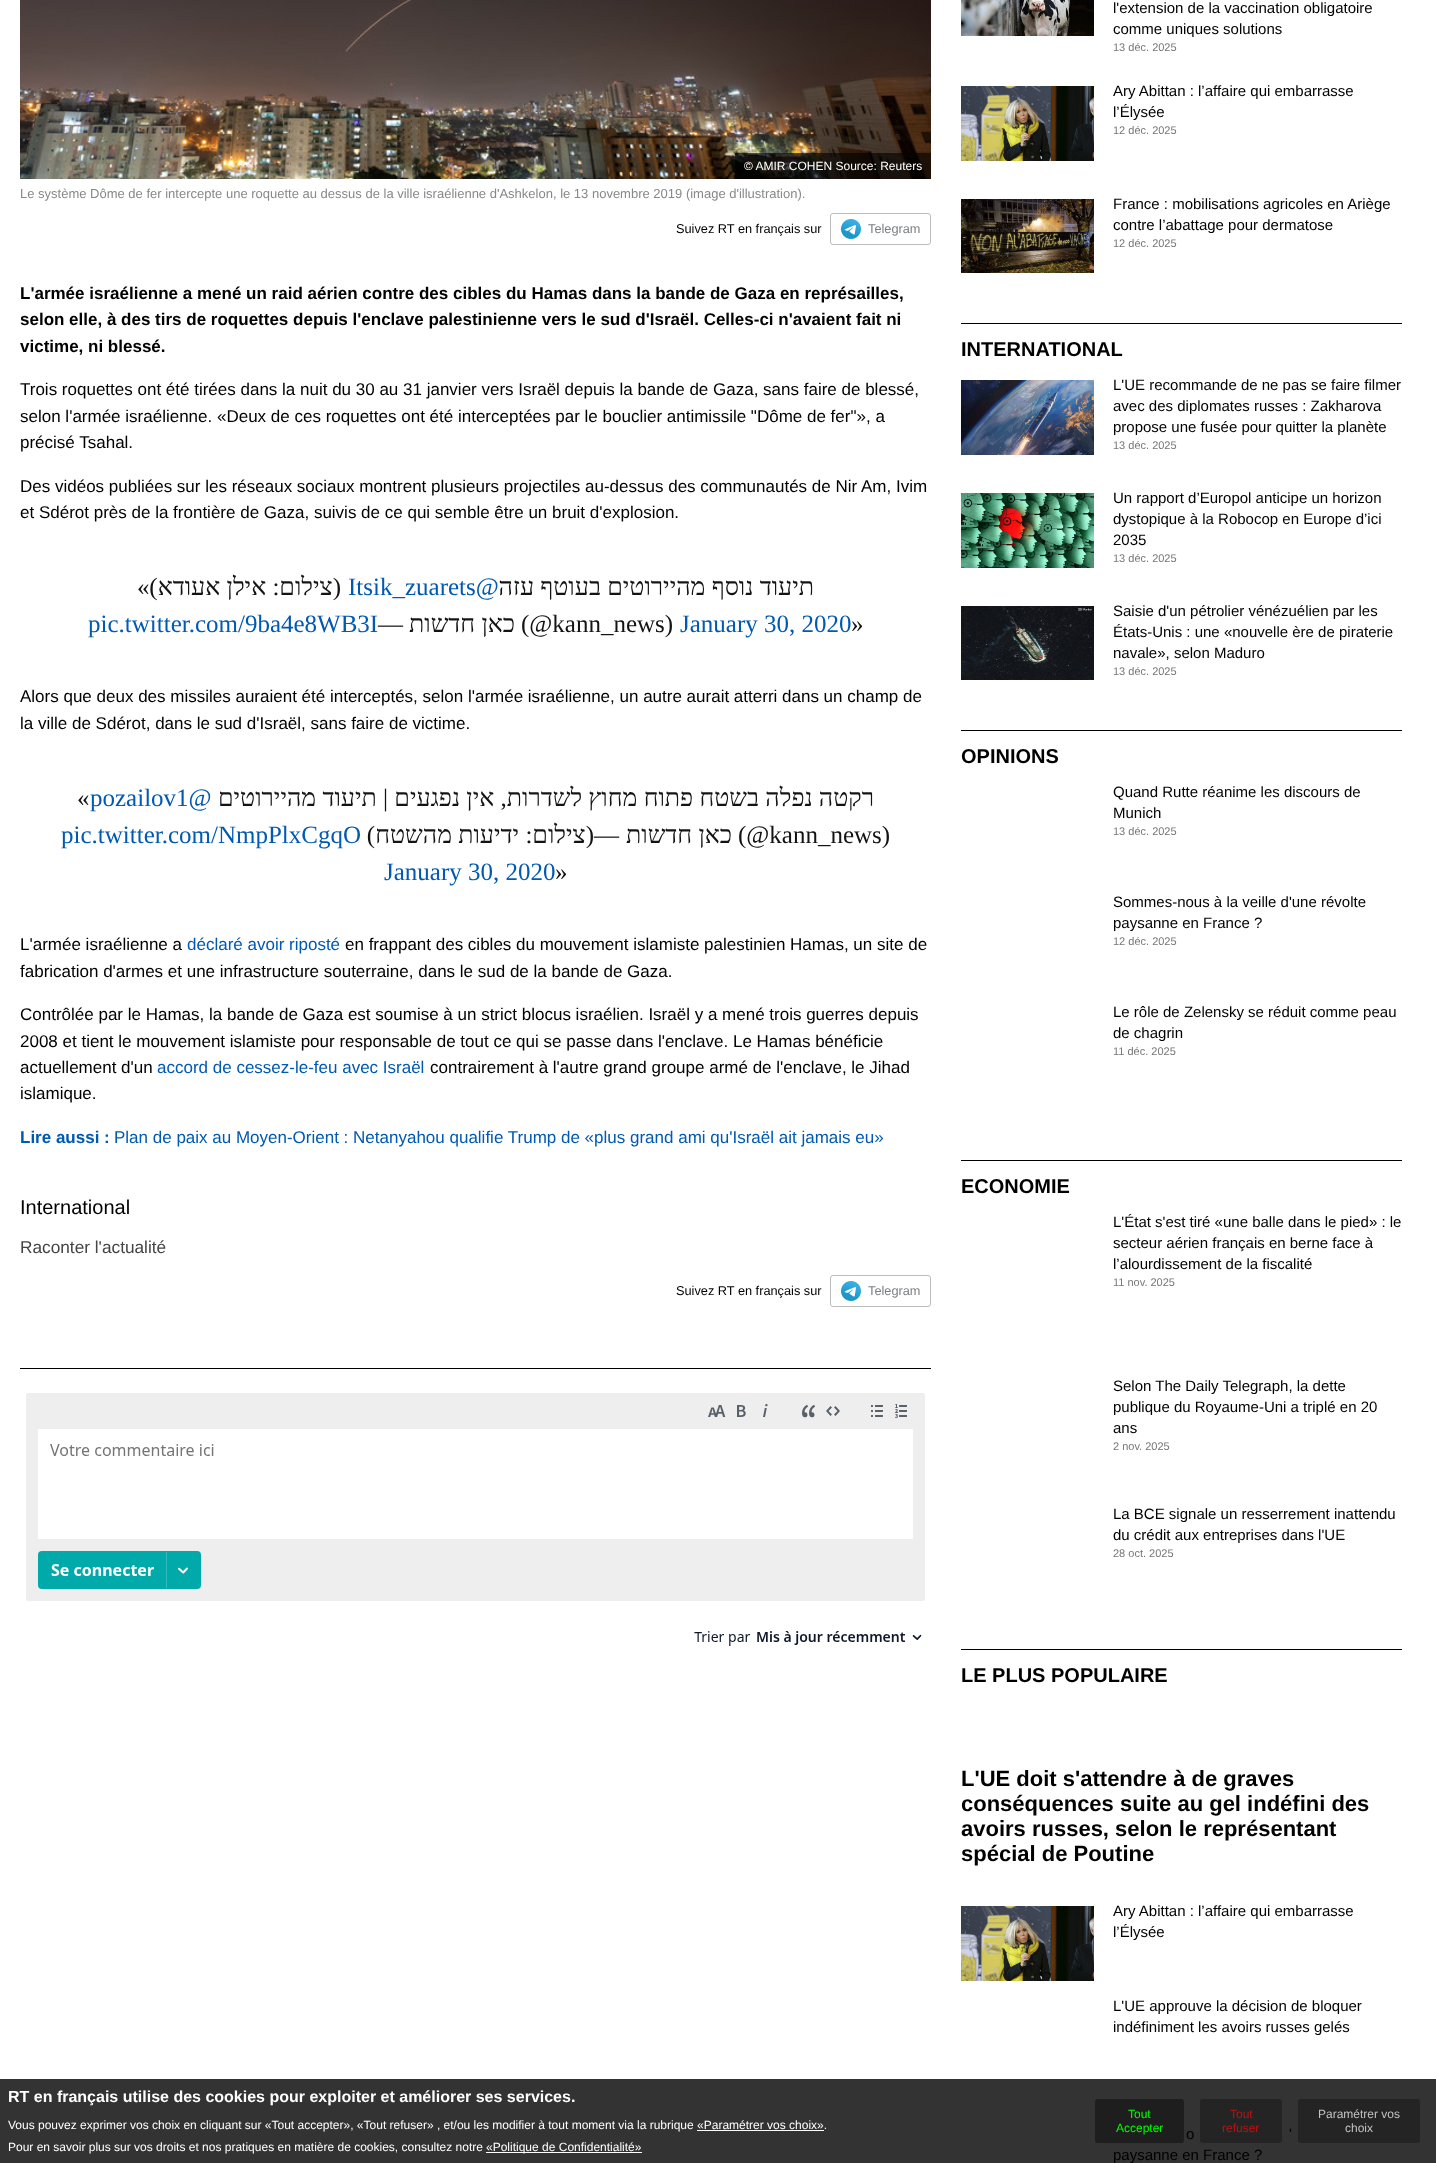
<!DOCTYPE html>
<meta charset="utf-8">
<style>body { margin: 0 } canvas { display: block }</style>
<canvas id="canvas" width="1436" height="2163"></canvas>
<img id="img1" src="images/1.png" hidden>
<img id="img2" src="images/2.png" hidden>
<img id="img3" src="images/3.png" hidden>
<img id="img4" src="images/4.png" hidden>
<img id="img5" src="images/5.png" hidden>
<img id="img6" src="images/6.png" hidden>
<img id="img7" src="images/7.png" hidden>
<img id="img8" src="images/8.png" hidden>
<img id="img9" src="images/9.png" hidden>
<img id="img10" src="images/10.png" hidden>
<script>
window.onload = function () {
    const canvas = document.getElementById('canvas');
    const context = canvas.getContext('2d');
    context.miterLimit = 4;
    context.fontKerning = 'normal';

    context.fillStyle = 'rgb(255, 255, 255)';
    context.fillRect(0, 0, 1436, 2163);
    context.fillStyle = 'rgb(51, 51, 51)';
    context.fillRect(0, 2079, 1436, 84);
    context.drawImage(document.getElementById('img1'), 20, 0, 911, 179);
    context.fillStyle = 'rgba(0, 0, 0, 0.6)';
    context.fillRect(735, 153, 196, 26);
    context.beginPath();
    context.roundRect(830.5, 213.5, 100, 31, 2.5);
    context.strokeStyle = 'rgb(188, 188, 188)';
    context.stroke();
    context.drawImage(document.getElementById('img2'), 841, 219, 20, 20);
    context.beginPath();
    context.roundRect(830.5, 1275.5, 100, 31, 2.5);
    context.stroke();
    context.drawImage(document.getElementById('img2'), 841, 1281, 20, 20);
    context.fillStyle = 'rgb(0, 0, 0)';
    context.fillRect(20, 1368, 911, 1);
    context.drawImage(document.getElementById('img3'), 26, 1393, 899, 253);
    context.drawImage(document.getElementById('img4'), 961, 0, 133, 36);
    context.drawImage(document.getElementById('img5'), 961, 86, 133, 75);
    context.drawImage(document.getElementById('img6'), 961, 199, 133, 74);
    context.fillRect(961, 323, 441, 1);
    context.drawImage(document.getElementById('img7'), 961, 380, 133, 75);
    context.drawImage(document.getElementById('img8'), 961, 493, 133, 75);
    context.drawImage(document.getElementById('img9'), 961, 606, 133, 74);
    context.fillRect(961, 730, 441, 1);
    context.fillRect(961, 1160, 441, 1);
    context.fillRect(961, 1649, 441, 1);
    context.drawImage(document.getElementById('img10'), 961, 1906, 133, 75);
    context.fillStyle = 'rgb(255, 255, 255)';
    context.fillRect(697, 2130, 127, 1);
    context.fillRect(486, 2152, 156, 1);
    context.fillStyle = 'rgb(30, 30, 30)';
    context.beginPath();
    context.roundRect(1095, 2099, 89, 44, 3);
    context.fill();
    context.fillStyle = 'rgba(30, 30, 30, 0.7)';
    context.beginPath();
    context.roundRect(1200, 2099, 82, 44, 3);
    context.fill();
    context.beginPath();
    context.roundRect(1298, 2099, 122, 44, 3);
    context.fill();
    context.font = '12px Liberation Sans';
    context.fillStyle = 'rgb(255, 255, 255)';
    context.fillText('© AMIR COHEN Source: Reuters', 744, 170);
    context.font = '13px Liberation Sans';
    context.fillStyle = 'rgb(136, 136, 136)';
    context.fillText('Le système Dôme de fer intercepte une roquette au dessus de la ville israélienne d\'Ashkelon, le 13 novembre 2019 (image d\'illustration).', 20, 198);
    context.font = '12.75px Liberation Sans';
    context.fillStyle = 'rgb(0, 0, 0)';
    context.fillText('Suivez RT en français sur', 676, 233);
    context.fillStyle = 'rgb(123, 127, 131)';
    context.fillText('Telegram', 868, 233);
    context.font = 'bold 17px Liberation Sans';
    context.fillStyle = 'rgb(0, 0, 0)';
    context.fillText('L\'armée israélienne a mené un raid aérien contre des cibles du Hamas dans la bande de Gaza en représailles,', 20, 299);
    context.fillText('selon elle, à des tirs de roquettes depuis l\'enclave palestinienne vers le sud d\'Israël. Celles-ci n\'avaient fait ni', 20, 325);
    context.fillText('victime, ni blessé.', 20, 352);
    context.font = '17px Liberation Sans';
    context.fillText('Trois roquettes ont été tirées dans la nuit du 30 au 31 janvier vers Israël depuis la bande de Gaza, sans faire de blessé,', 20, 395);
    context.fillText('selon l\'armée israélienne. «Deux de ces roquettes ont été interceptées par le bouclier antimissile "Dôme de fer"», a', 20, 422);
    context.fillText('précisé Tsahal.', 20, 448);
    context.fillText('Des vidéos publiées sur les réseaux sociaux montrent plusieurs projectiles au-dessus des communautés de Nir Am, Ivim', 20, 492);
    context.fillText('et Sdérot près de la frontière de Gaza, suivis de ce qui semble être un bruit d\'explosion.', 20, 518);
    context.font = '25px Liberation Serif';
    context.fillStyle = 'rgb(19, 19, 19)';
    context.fillText('«', 137, 595);
    context.direction = 'rtl';
    context.fillText('(צילום: אילן אעודא)', 341, 595);
    context.direction = 'ltr';
    context.fillStyle = 'rgb(0, 89, 178)';
    context.fillText('Itsik_zuarets@', 348, 595);
    context.direction = 'rtl';
    context.fillStyle = 'rgb(19, 19, 19)';
    context.fillText('תיעוד נוסף מהיירוטים בעוטף עזה', 814, 595);
    context.direction = 'ltr';
    context.fillStyle = 'rgb(0, 89, 178)';
    context.fillText('pic.twitter.com/9ba4e8WB3I', 88, 632);
    context.fillStyle = 'rgb(19, 19, 19)';
    context.fillText('—', 378, 632);
    context.direction = 'rtl';
    context.fillText('כאן חדשות', 515, 632);
    context.direction = 'ltr';
    context.fillText('(@kann_news)', 521, 632);
    context.fillStyle = 'rgb(0, 89, 178)';
    context.fillText('January 30, 2020', 680, 632);
    context.fillStyle = 'rgb(19, 19, 19)';
    context.fillText('»', 851, 632);
    context.font = '17px Liberation Sans';
    context.fillStyle = 'rgb(0, 0, 0)';
    context.fillText('Alors que deux des missiles auraient été interceptés, selon l\'armée israélienne, un autre aurait atterri dans un champ de', 20, 702);
    context.fillText('la ville de Sdérot, dans le sud d\'Israël, sans faire de victime.', 20, 729);
    context.font = '25px Liberation Serif';
    context.fillStyle = 'rgb(19, 19, 19)';
    context.fillText('«', 77, 806);
    context.fillStyle = 'rgb(0, 89, 178)';
    context.fillText('pozailov1@', 90, 806);
    context.direction = 'rtl';
    context.fillStyle = 'rgb(19, 19, 19)';
    context.fillText('רקטה נפלה בשטח פתוח מחוץ לשדרות, אין נפגעים | תיעוד מהיירוטים', 874, 806);
    context.direction = 'ltr';
    context.fillStyle = 'rgb(0, 89, 178)';
    context.fillText('pic.twitter.com/NmpPlxCgqO', 61, 843);
    context.direction = 'rtl';
    context.fillStyle = 'rgb(19, 19, 19)';
    context.fillText('(צילום: ידיעות מהשטח)', 594, 843);
    context.direction = 'ltr';
    context.fillText('—', 594, 843);
    context.direction = 'rtl';
    context.fillText('כאן חדשות', 732, 843);
    context.direction = 'ltr';
    context.fillText('(@kann_news)', 738, 843);
    context.fillStyle = 'rgb(0, 89, 178)';
    context.fillText('January 30, 2020', 384, 880);
    context.fillStyle = 'rgb(19, 19, 19)';
    context.fillText('»', 555, 880);
    context.font = '17px Liberation Sans';
    context.fillStyle = 'rgb(0, 0, 0)';
    context.fillText('L\'armée israélienne a', 20, 950);
    context.fillStyle = 'rgb(0, 89, 178)';
    context.fillText('déclaré avoir riposté', 187, 950);
    context.fillStyle = 'rgb(0, 0, 0)';
    context.fillText('en frappant des cibles du mouvement islamiste palestinien Hamas, un site de', 345, 950);
    context.fillText('fabrication d\'armes et une infrastructure souterraine, dans le sud de la bande de Gaza.', 20, 977);
    context.fillText('Contrôlée par le Hamas, la bande de Gaza est soumise à un strict blocus israélien. Israël y a mené trois guerres depuis', 20, 1020);
    context.fillText('2008 et tient le mouvement islamiste pour responsable de tout ce qui se passe dans l\'enclave. Le Hamas bénéficie', 20, 1047);
    context.fillText('actuellement d\'un', 20, 1073);
    context.fillStyle = 'rgb(0, 89, 178)';
    context.fillText('accord de cessez-le-feu avec Israël', 157, 1073);
    context.fillStyle = 'rgb(0, 0, 0)';
    context.fillText('contrairement à l\'autre grand groupe armé de l\'enclave, le Jihad', 430, 1073);
    context.fillText('islamique.', 20, 1099);
    context.font = 'bold 17px Liberation Sans';
    context.fillStyle = 'rgb(0, 89, 178)';
    context.fillText('Lire aussi :', 20, 1143);
    context.font = '17px Liberation Sans';
    context.fillText('Plan de paix au Moyen-Orient : Netanyahou qualifie Trump de «plus grand ami qu\'Israël ait jamais eu»', 114, 1143);
    context.font = '20px Liberation Sans';
    context.fillStyle = 'rgb(0, 0, 0)';
    context.fillText('International', 20, 1214);
    context.font = '17.25px Liberation Sans';
    context.fillStyle = 'rgb(68, 68, 68)';
    context.fillText('Raconter l\'actualité', 20, 1253);
    context.font = '12.75px Liberation Sans';
    context.fillStyle = 'rgb(0, 0, 0)';
    context.fillText('Suivez RT en français sur', 676, 1295);
    context.fillStyle = 'rgb(123, 127, 131)';
    context.fillText('Telegram', 868, 1295);
    context.font = '15px Liberation Sans';
    context.fillStyle = 'rgb(0, 0, 0)';
    context.fillText('l\'extension de la vaccination obligatoire', 1113, 13);
    context.fillText('comme uniques solutions', 1113, 34);
    context.font = '11px Liberation Sans';
    context.fillStyle = 'rgb(119, 119, 119)';
    context.fillText('13 déc. 2025', 1113, 51);
    context.font = '15px Liberation Sans';
    context.fillStyle = 'rgb(0, 0, 0)';
    context.fillText('Ary Abittan : l’affaire qui embarrasse', 1113, 96);
    context.fillText('l’Élysée', 1113, 117);
    context.font = '11px Liberation Sans';
    context.fillStyle = 'rgb(119, 119, 119)';
    context.fillText('12 déc. 2025', 1113, 134);
    context.font = '15px Liberation Sans';
    context.fillStyle = 'rgb(0, 0, 0)';
    context.fillText('France : mobilisations agricoles en Ariège', 1113, 209);
    context.fillText('contre l’abattage pour dermatose', 1113, 230);
    context.font = '11px Liberation Sans';
    context.fillStyle = 'rgb(119, 119, 119)';
    context.fillText('12 déc. 2025', 1113, 247);
    context.font = 'bold 20px Liberation Sans';
    context.fillStyle = 'rgb(0, 0, 0)';
    context.fillText('INTERNATIONAL', 961, 356);
    context.font = '15px Liberation Sans';
    context.fillText('L\'UE recommande de ne pas se faire filmer', 1113, 390);
    context.fillText('avec des diplomates russes : Zakharova', 1113, 411);
    context.fillText('propose une fusée pour quitter la planète', 1113, 432);
    context.font = '11px Liberation Sans';
    context.fillStyle = 'rgb(119, 119, 119)';
    context.fillText('13 déc. 2025', 1113, 449);
    context.font = '15px Liberation Sans';
    context.fillStyle = 'rgb(0, 0, 0)';
    context.fillText('Un rapport d’Europol anticipe un horizon', 1113, 503);
    context.fillText('dystopique à la Robocop en Europe d’ici', 1113, 524);
    context.fillText('2035', 1113, 545);
    context.font = '11px Liberation Sans';
    context.fillStyle = 'rgb(119, 119, 119)';
    context.fillText('13 déc. 2025', 1113, 562);
    context.font = '15px Liberation Sans';
    context.fillStyle = 'rgb(0, 0, 0)';
    context.fillText('Saisie d\'un pétrolier vénézuélien par les', 1113, 616);
    context.fillText('États-Unis : une «nouvelle ère de piraterie', 1113, 637);
    context.fillText('navale», selon Maduro', 1113, 658);
    context.font = '11px Liberation Sans';
    context.fillStyle = 'rgb(119, 119, 119)';
    context.fillText('13 déc. 2025', 1113, 675);
    context.font = 'bold 20px Liberation Sans';
    context.fillStyle = 'rgb(0, 0, 0)';
    context.fillText('OPINIONS', 961, 763);
    context.font = '15px Liberation Sans';
    context.fillText('Quand Rutte réanime les discours de', 1113, 797);
    context.fillText('Munich', 1113, 818);
    context.font = '11px Liberation Sans';
    context.fillStyle = 'rgb(119, 119, 119)';
    context.fillText('13 déc. 2025', 1113, 835);
    context.font = '15px Liberation Sans';
    context.fillStyle = 'rgb(0, 0, 0)';
    context.fillText('Sommes-nous à la veille d\'une révolte', 1113, 907);
    context.fillText('paysanne en France ?', 1113, 928);
    context.font = '11px Liberation Sans';
    context.fillStyle = 'rgb(119, 119, 119)';
    context.fillText('12 déc. 2025', 1113, 945);
    context.font = '15px Liberation Sans';
    context.fillStyle = 'rgb(0, 0, 0)';
    context.fillText('Le rôle de Zelensky se réduit comme peau', 1113, 1017);
    context.fillText('de chagrin', 1113, 1038);
    context.font = '11px Liberation Sans';
    context.fillStyle = 'rgb(119, 119, 119)';
    context.fillText('11 déc. 2025', 1113, 1055);
    context.font = 'bold 20px Liberation Sans';
    context.fillStyle = 'rgb(0, 0, 0)';
    context.fillText('ECONOMIE', 961, 1193);
    context.font = '15px Liberation Sans';
    context.fillText('L\'État s\'est tiré «une balle dans le pied» : le', 1113, 1227);
    context.fillText('secteur aérien français en berne face à', 1113, 1248);
    context.fillText('l’alourdissement de la fiscalité', 1113, 1269);
    context.font = '11px Liberation Sans';
    context.fillStyle = 'rgb(119, 119, 119)';
    context.fillText('11 nov. 2025', 1113, 1286);
    context.font = '15px Liberation Sans';
    context.fillStyle = 'rgb(0, 0, 0)';
    context.fillText('Selon The Daily Telegraph, la dette', 1113, 1391);
    context.fillText('publique du Royaume-Uni a triplé en 20', 1113, 1412);
    context.fillText('ans', 1113, 1433);
    context.font = '11px Liberation Sans';
    context.fillStyle = 'rgb(119, 119, 119)';
    context.fillText('2 nov. 2025', 1113, 1450);
    context.font = '15px Liberation Sans';
    context.fillStyle = 'rgb(0, 0, 0)';
    context.fillText('La BCE signale un resserrement inattendu', 1113, 1519);
    context.fillText('du crédit aux entreprises dans l\'UE', 1113, 1540);
    context.font = '11px Liberation Sans';
    context.fillStyle = 'rgb(119, 119, 119)';
    context.fillText('28 oct. 2025', 1113, 1557);
    context.font = 'bold 20px Liberation Sans';
    context.fillStyle = 'rgb(0, 0, 0)';
    context.fillText('LE PLUS POPULAIRE', 961, 1682);
    context.font = 'bold 22px Liberation Sans';
    context.fillText('L\'UE doit s\'attendre à de graves', 961, 1786);
    context.fillText('conséquences suite au gel indéfini des', 961, 1811);
    context.fillText('avoirs russes, selon le représentant', 961, 1836);
    context.fillText('spécial de Poutine', 961, 1861);
    context.font = '15px Liberation Sans';
    context.fillText('Ary Abittan : l’affaire qui embarrasse', 1113, 1916);
    context.fillText('l’Élysée', 1113, 1937);
    context.fillText('L\'UE approuve la décision de bloquer', 1113, 2011);
    context.fillText('indéfiniment les avoirs russes gelés', 1113, 2032);
    context.fillText('o', 1186, 2139);
    context.fillText('\'', 1289, 2139);
    context.fillText('paysanne en France ?', 1113, 2160);
    context.font = 'bold 16px Liberation Sans';
    context.fillStyle = 'rgb(255, 255, 255)';
    context.fillText('RT en français utilise des cookies pour exploiter et améliorer ses services.', 8, 2102);
    context.font = '12px Liberation Sans';
    context.fillText('Vous pouvez exprimer vos choix en cliquant sur «Tout accepter», «Tout refuser» , et/ou les modifier à tout moment via la rubrique «Paramétrer vos choix».', 8, 2129);
    context.fillText('Pour en savoir plus sur vos droits et nos pratiques en matière de cookies, consultez notre', 8, 2151);
    context.fillText('«Politique de Confidentialité»', 486, 2151);
    context.fillStyle = 'rgb(0, 255, 0)';
    context.fillText('Tout', 1128, 2118);
    context.fillText('Accepter', 1116, 2132);
    context.fillStyle = 'rgb(194, 15, 15)';
    context.fillText('Tout', 1230, 2118);
    context.fillText('refuser', 1222, 2132);
    context.fillStyle = 'rgb(194, 194, 194)';
    context.fillText('Paramétrer vos', 1318, 2118);
    context.fillText('choix', 1345, 2132);
};
</script>
